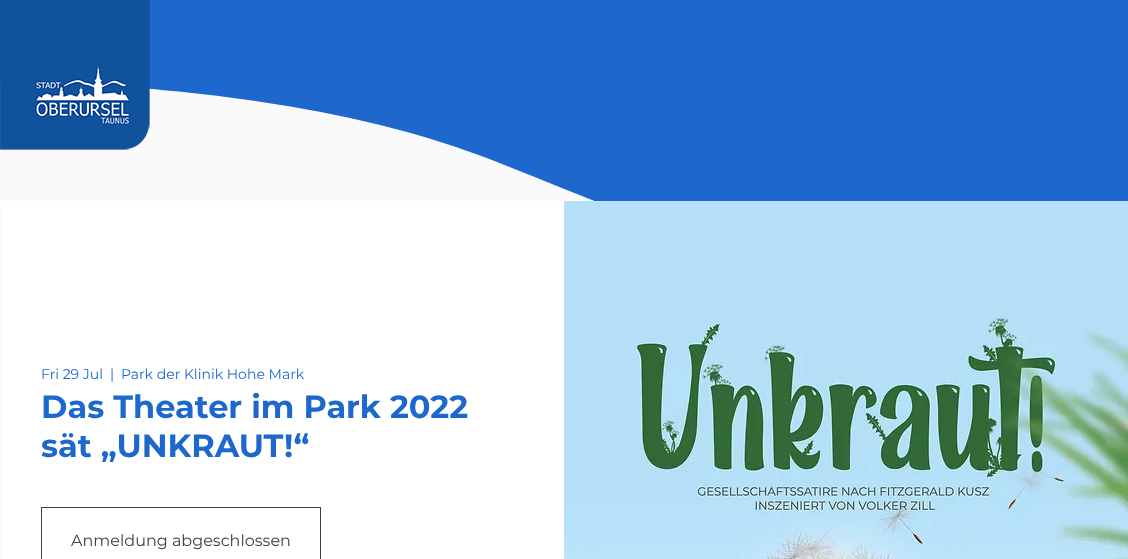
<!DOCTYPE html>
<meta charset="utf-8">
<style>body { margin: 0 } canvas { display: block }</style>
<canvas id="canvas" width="1128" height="559"></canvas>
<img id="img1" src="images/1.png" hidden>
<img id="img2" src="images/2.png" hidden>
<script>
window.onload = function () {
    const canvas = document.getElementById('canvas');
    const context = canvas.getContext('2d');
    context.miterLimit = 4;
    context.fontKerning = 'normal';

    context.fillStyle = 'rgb(250, 250, 250)';
    context.fillRect(0, 0, 1128, 559);
    context.fillStyle = 'rgb(29, 103, 205)';
    context.fillRect(0, 0, 1128, 201);
    context.fillStyle = 'rgb(250, 250, 250)';
    context.beginPath();
    context.moveTo(1128, 317);
    context.lineTo(1128, 312);
    context.bezierCurveTo(861, 312, 722, 252, 492, 160);
    context.bezierCurveTo(288, 79, 0, 82, 0, 82);
    context.lineTo(0, 317);
    context.closePath();
    context.fill();
    context.drawImage(document.getElementById('img1'), 0, 0, 150, 150);
    context.fillStyle = 'rgb(255, 255, 255)';
    context.fillRect(1, 201, 563, 358);
    context.strokeStyle = 'rgb(65, 65, 65)';
    context.strokeRect(41.5, 507.5, 279, 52);
    context.drawImage(document.getElementById('img2'), 564, 201, 564, 358);
    context.font = '14px Montserrat';
    context.fillStyle = 'rgb(29, 103, 205)';
    context.fillText('Fri 29 Jul', 41, 379);
    context.fillText('|', 110, 379);
    context.fillText('Park der Klinik Hohe Mark', 121, 379);
    context.font = 'bold 32px Montserrat';
    context.fillText('Das Theater im Park 2022', 41, 418);
    context.fillText('sät „UNKRAUT!“', 41, 457);
    context.font = '16px Montserrat';
    context.fillStyle = 'rgb(65, 65, 65)';
    context.fillText('Anmeldung abgeschlossen', 71, 546);
};
</script>
